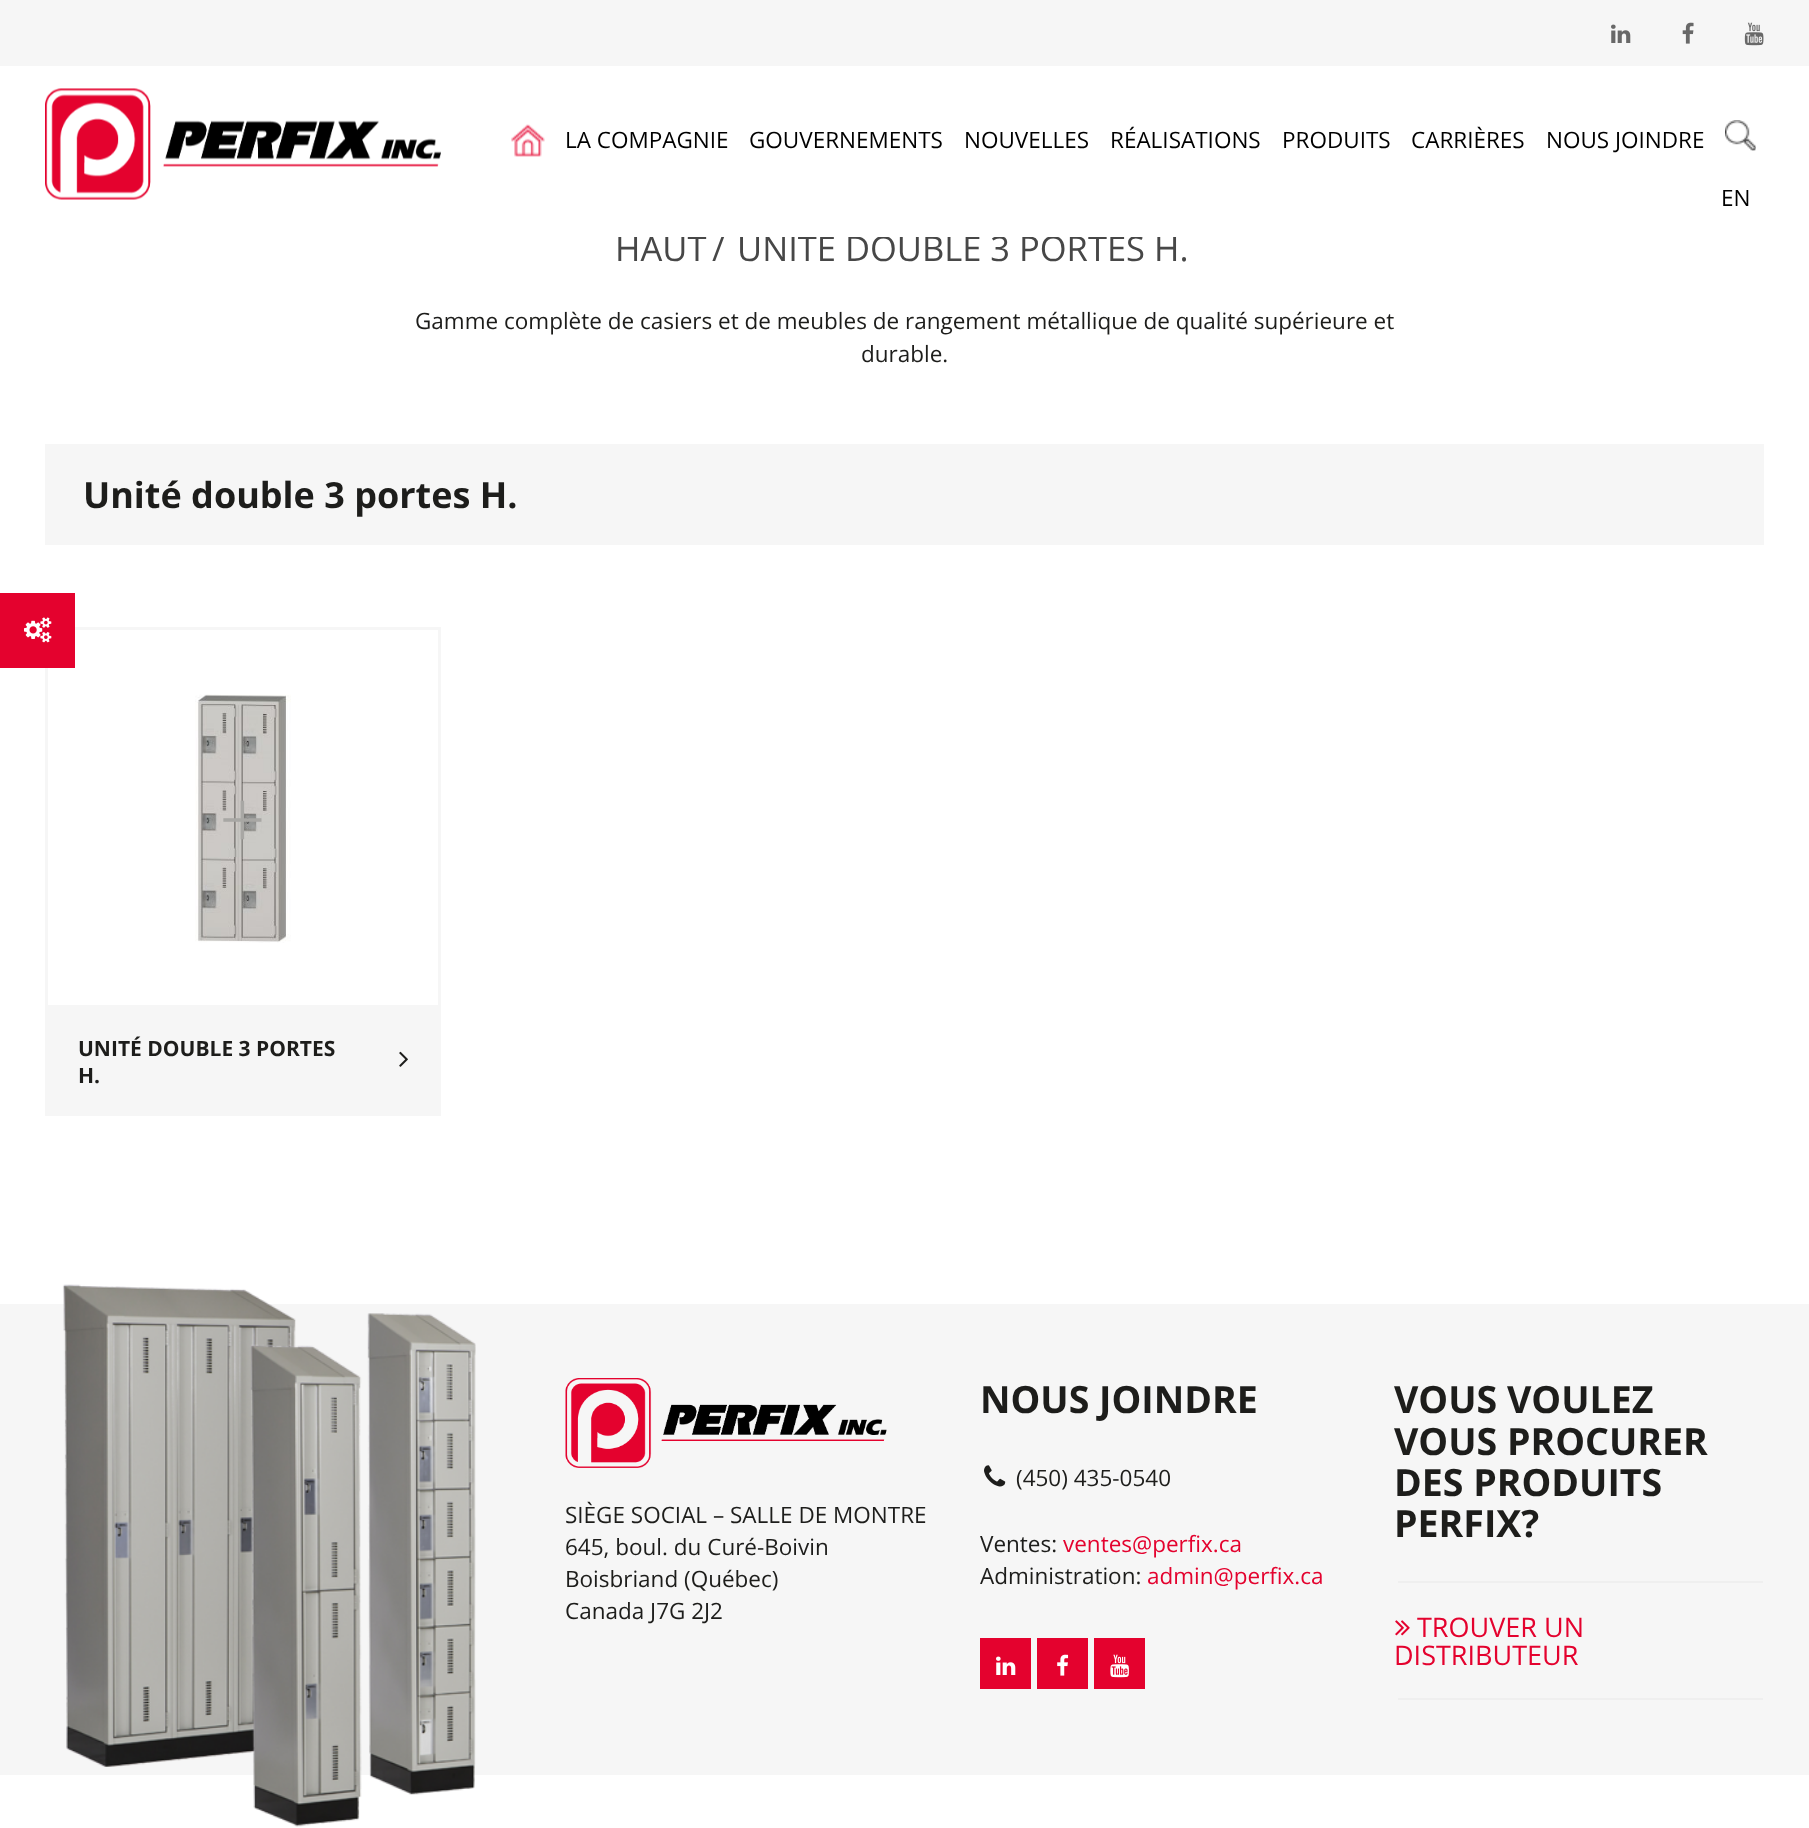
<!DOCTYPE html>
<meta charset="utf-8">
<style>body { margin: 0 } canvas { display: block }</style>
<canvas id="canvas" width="1809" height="1828"></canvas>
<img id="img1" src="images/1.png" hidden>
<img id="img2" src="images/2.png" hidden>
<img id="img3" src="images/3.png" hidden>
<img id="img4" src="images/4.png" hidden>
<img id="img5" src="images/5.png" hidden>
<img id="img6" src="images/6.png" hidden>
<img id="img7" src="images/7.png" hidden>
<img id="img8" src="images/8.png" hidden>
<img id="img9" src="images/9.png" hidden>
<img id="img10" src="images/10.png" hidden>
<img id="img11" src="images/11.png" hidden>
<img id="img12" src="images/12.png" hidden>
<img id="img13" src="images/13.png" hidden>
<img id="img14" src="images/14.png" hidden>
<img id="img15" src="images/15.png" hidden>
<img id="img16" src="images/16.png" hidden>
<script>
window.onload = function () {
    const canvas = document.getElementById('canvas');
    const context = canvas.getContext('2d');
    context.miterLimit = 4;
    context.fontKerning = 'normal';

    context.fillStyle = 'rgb(255, 255, 255)';
    context.fillRect(0, 0, 1809, 1828);
    context.fillStyle = 'rgb(246, 246, 246)';
    context.fillRect(0, 0, 1809, 66);
    context.drawImage(document.getElementById('img1'), 1611, 24, 20, 19);
    context.drawImage(document.getElementById('img2'), 1682, 22, 12, 22);
    context.drawImage(document.getElementById('img3'), 1744, 22, 20, 24);
    context.drawImage(document.getElementById('img4'), 45, 88, 396, 112);
    context.drawImage(document.getElementById('img5'), 511, 124, 34, 33);
    context.drawImage(document.getElementById('img6'), 1725, 120, 31, 31);
    context.strokeStyle = 'rgb(246, 246, 246)';
    context.lineWidth = 3;
    context.strokeRect(46.5, 628.5, 393, 486);
    context.fillStyle = 'rgb(228, 2, 46)';
    context.fillRect(0, 593, 75, 75);
    context.drawImage(document.getElementById('img7'), 24, 617, 28, 26);
    context.fillStyle = 'rgb(246, 246, 246)';
    context.fillRect(45, 444, 1719, 101);
    context.drawImage(document.getElementById('img8'), 195, 694, 96, 249);
    context.fillRect(48, 1005, 390, 108);
    context.drawImage(document.getElementById('img9'), 399, 1051, 9, 16);
    context.fillRect(0, 1304, 1809, 471);
    context.drawImage(document.getElementById('img10'), 62, 1284, 414, 543);
    context.drawImage(document.getElementById('img11'), 565, 1378, 322, 90);
    context.drawImage(document.getElementById('img12'), 984, 1465, 22, 22);
    context.fillStyle = 'rgb(228, 2, 46)';
    context.fillRect(980, 1638, 51, 51);
    context.drawImage(document.getElementById('img13'), 996, 1656, 20, 19);
    context.fillRect(1037, 1638, 51, 51);
    context.drawImage(document.getElementById('img14'), 1057, 1654, 12, 22);
    context.fillRect(1094, 1638, 51, 51);
    context.drawImage(document.getElementById('img15'), 1110, 1654, 19, 24);
    context.fillStyle = 'rgb(239, 239, 239)';
    context.fillRect(1398, 1581, 365, 2);
    context.fillRect(1398, 1698, 365, 2);
    context.drawImage(document.getElementById('img16'), 1395, 1620, 15, 16);
    context.font = '22.5px Open Sans';
    context.fillStyle = 'rgb(0, 0, 0)';
    context.fillText('LA COMPAGNIE', 565, 148);
    context.fillText('GOUVERNEMENTS', 749, 148);
    context.fillText('NOUVELLES', 964, 148);
    context.fillText('RÉALISATIONS', 1110, 148);
    context.fillText('PRODUITS', 1282, 148);
    context.fillText('CARRIÈRES', 1411, 148);
    context.fillText('NOUS JOINDRE', 1546, 148);
    context.fillText('EN', 1721, 206);
    context.font = '34.5px Open Sans';
    context.fillStyle = 'rgb(71, 71, 71)';
    context.fillText('HAUT', 615, 261);
    context.fillText('/', 712, 261);
    context.fillText('UNITÉ DOUBLE 3 PORTES H.', 737, 261);
    context.fillStyle = 'rgb(255, 255, 255)';
    context.fillRect(618, 228, 558, 9);
    context.font = '22.5px Open Sans';
    context.fillStyle = 'rgb(29, 29, 27)';
    context.fillText('Gamme complète de casiers et de meubles de rangement métallique de qualité supérieure et', 415, 329);
    context.fillText('durable.', 861, 362);
    context.font = 'bold 36px Open Sans';
    context.fillText('Unité double 3 portes H.', 83, 508);
    context.font = '300 82px Open Sans';
    context.fillStyle = 'rgb(168, 167, 164)';
    context.fillText('+', 219, 849);
    context.font = 'bold 21px Open Sans';
    context.fillStyle = 'rgb(29, 29, 27)';
    context.fillText('UNITÉ DOUBLE 3 PORTES', 78, 1056);
    context.fillText('H.', 78, 1083);
    context.font = '22.5px Open Sans';
    context.fillText('SIÈGE SOCIAL – SALLE DE MONTRE', 565, 1523);
    context.fillText('645, boul. du Curé-Boivin', 565, 1555);
    context.fillText('Boisbriand (Québec)', 565, 1587);
    context.fillText('Canada J7G 2J2', 565, 1619);
    context.font = 'bold 37.5px Open Sans';
    context.fillText('NOUS JOINDRE', 980, 1413);
    context.font = '22.5px Open Sans';
    context.fillText('(450) 435-0540', 1016, 1486);
    context.fillText('Ventes:', 980, 1552);
    context.fillStyle = 'rgb(228, 2, 46)';
    context.fillText('ventes@perfix.ca', 1063, 1552);
    context.fillStyle = 'rgb(29, 29, 27)';
    context.fillText('Administration:', 980, 1584);
    context.fillStyle = 'rgb(228, 2, 46)';
    context.fillText('admin@perfix.ca', 1147, 1584);
    context.font = 'bold 37.5px Open Sans';
    context.fillStyle = 'rgb(29, 29, 27)';
    context.fillText('VOUS VOULEZ', 1394, 1413);
    context.fillText('VOUS PROCURER', 1394, 1455);
    context.fillText('DES PRODUITS', 1394, 1496);
    context.fillText('PERFIX?', 1394, 1537);
    context.font = '27px Open Sans';
    context.fillStyle = 'rgb(228, 2, 46)';
    context.fillText('TROUVER UN', 1417, 1637);
    context.fillText('DISTRIBUTEUR', 1394, 1665);
};
</script>
